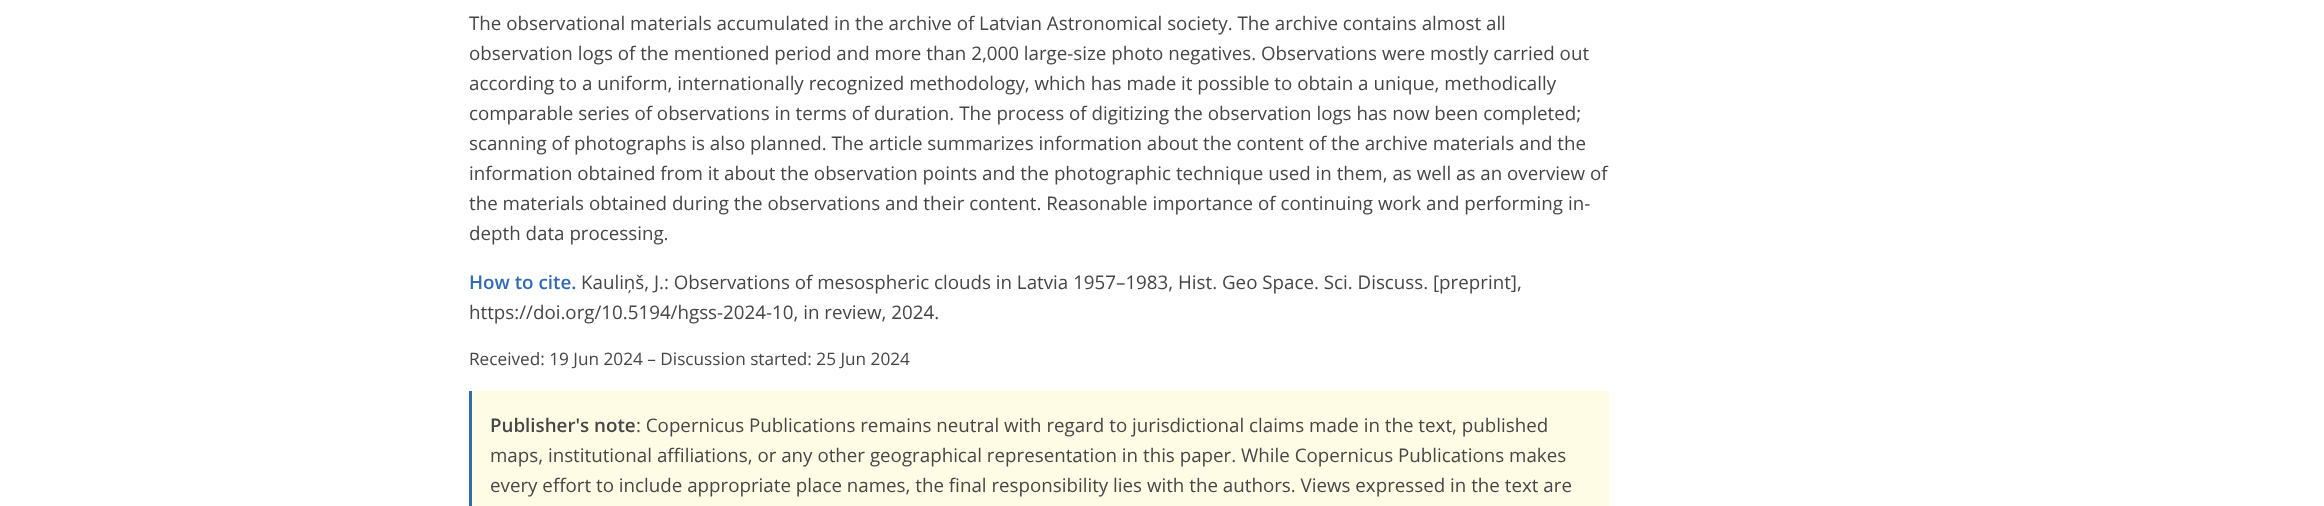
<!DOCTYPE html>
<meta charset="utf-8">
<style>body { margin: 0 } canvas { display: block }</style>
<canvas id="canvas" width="2324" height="506"></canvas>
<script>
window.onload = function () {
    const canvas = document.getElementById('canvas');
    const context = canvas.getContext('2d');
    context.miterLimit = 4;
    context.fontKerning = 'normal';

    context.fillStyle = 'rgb(255, 255, 255)';
    context.fillRect(0, 0, 2324, 506);
    context.fillStyle = 'rgb(255, 252, 230)';
    context.fillRect(472, 391, 1137, 115);
    context.fillStyle = 'rgb(51, 107, 176)';
    context.fillRect(469, 391, 3, 115);
    context.font = '18.75px Open Sans';
    context.fillStyle = 'rgb(70, 70, 70)';
    context.fillText('The observational materials accumulated in the archive of Latvian Astronomical society. The archive contains almost all', 469, 30);
    context.fillText('observation logs of the mentioned period and more than 2,000 large-size photo negatives. Observations were mostly carried out', 469, 60);
    context.fillText('according to a uniform, internationally recognized methodology, which has made it possible to obtain a unique, methodically', 469, 90);
    context.fillText('comparable series of observations in terms of duration. The process of digitizing the observation logs has now been completed;', 469, 120);
    context.fillText('scanning of photographs is also planned. The article summarizes information about the content of the archive materials and the', 469, 150);
    context.fillText('information obtained from it about the observation points and the photographic technique used in them, as well as an overview of', 469, 180);
    context.fillText('the materials obtained during the observations and their content. Reasonable importance of continuing work and performing in-', 469, 210);
    context.fillText('depth data processing.', 469, 240);
    context.font = '600 18.75px Open Sans';
    context.fillStyle = 'rgb(51, 107, 176)';
    context.fillText('How to cite.', 469, 289);
    context.font = '18.75px Open Sans';
    context.fillStyle = 'rgb(70, 70, 70)';
    context.fillText('Kauliņš, J.: Observations of mesospheric clouds in Latvia 1957–1983, Hist. Geo Space. Sci. Discuss. [preprint],', 581, 289);
    context.fillText('https://doi.org/10.5194/hgss-2024-10, in review, 2024.', 469, 319);
    context.font = '17.2px Open Sans';
    context.fillText('Received: 19 Jun 2024 – Discussion started: 25 Jun 2024', 469, 365);
    context.font = '600 18.75px Open Sans';
    context.fillText('Publisher\'s note', 490, 432);
    context.font = '18.75px Open Sans';
    context.fillText(': Copernicus Publications remains neutral with regard to jurisdictional claims made in the text, published', 636, 432);
    context.fillText('maps, institutional affiliations, or any other geographical representation in this paper. While Copernicus Publications makes', 490, 462);
    context.fillText('every effort to include appropriate place names, the final responsibility lies with the authors. Views expressed in the text are', 490, 492);
};
</script>
